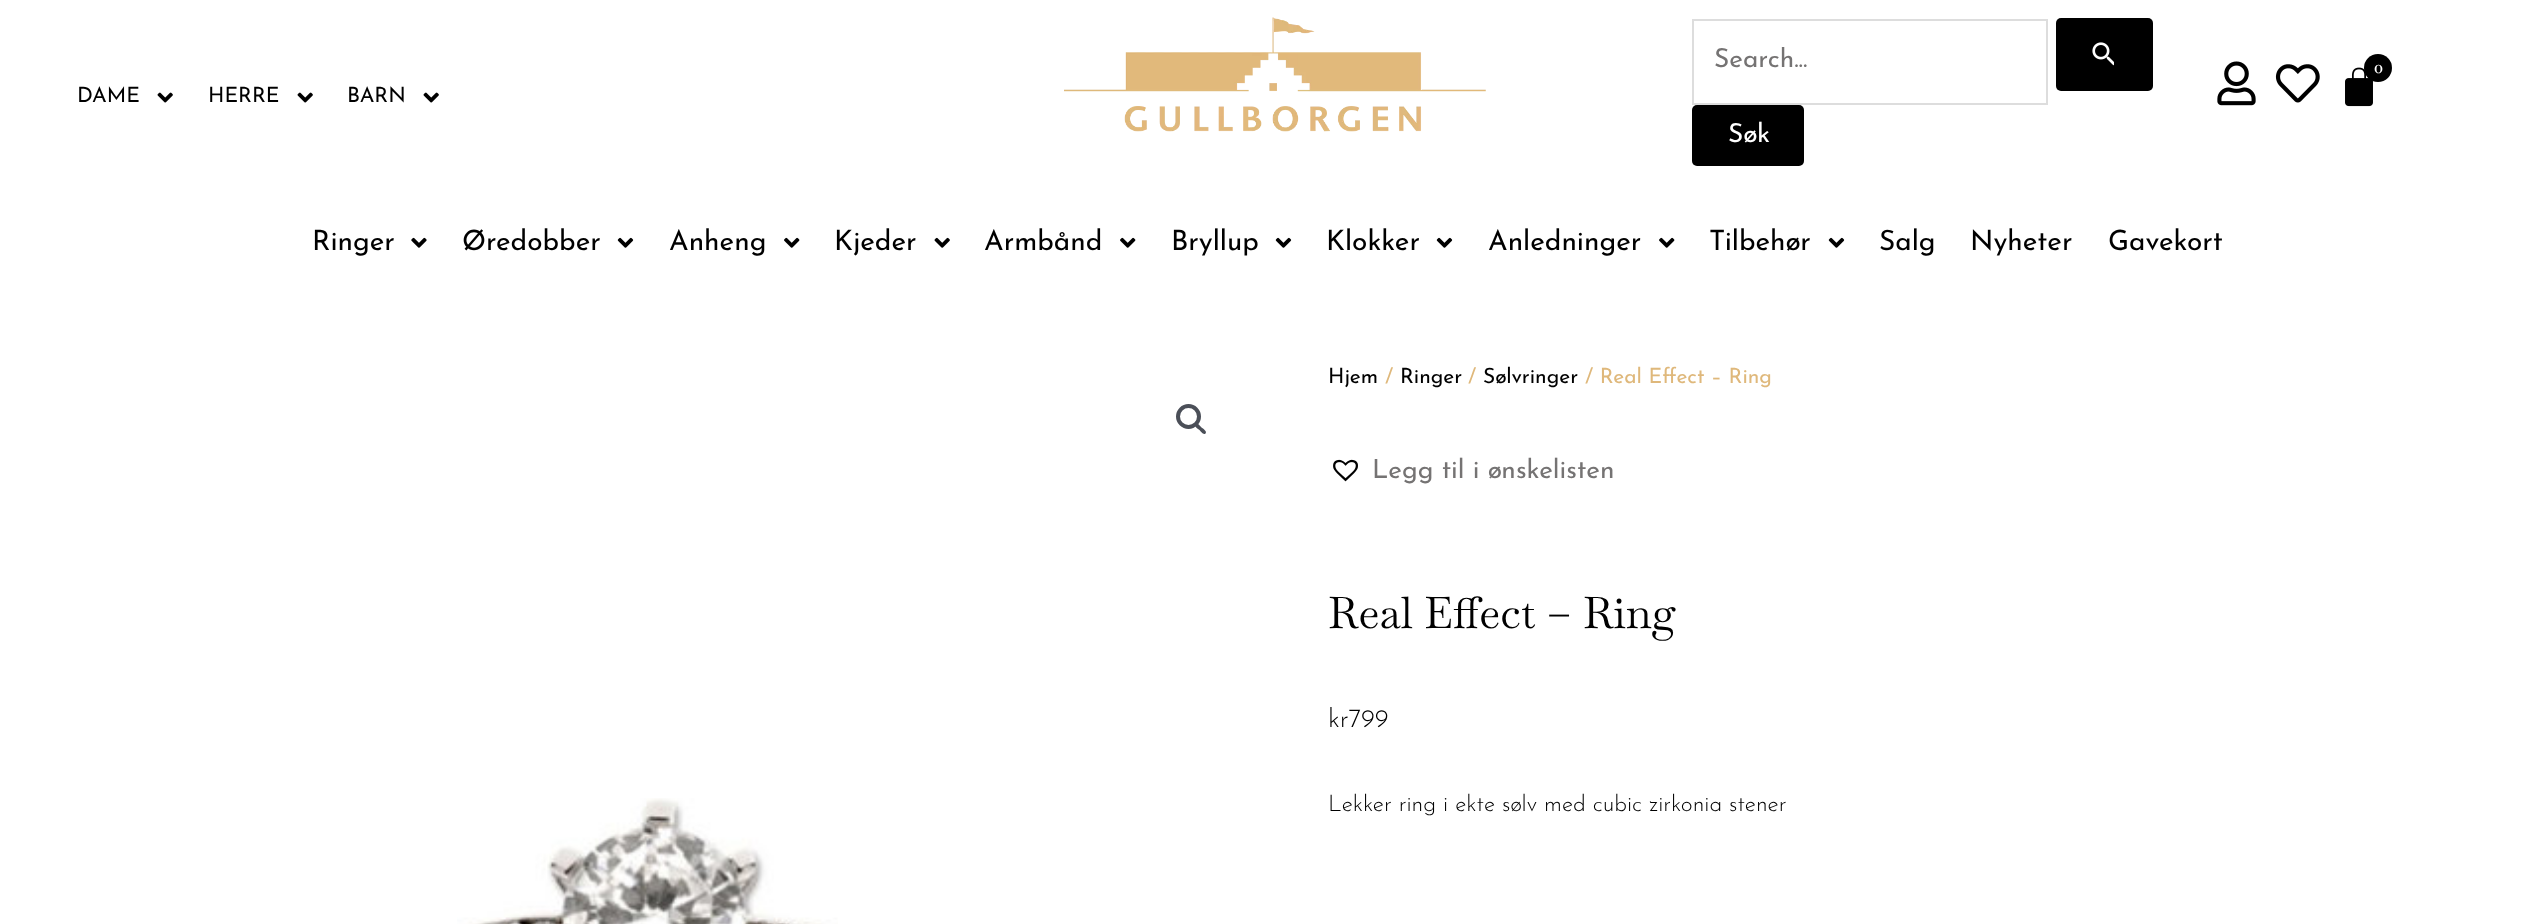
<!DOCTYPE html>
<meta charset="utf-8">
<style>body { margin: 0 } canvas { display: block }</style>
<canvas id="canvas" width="2533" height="924"></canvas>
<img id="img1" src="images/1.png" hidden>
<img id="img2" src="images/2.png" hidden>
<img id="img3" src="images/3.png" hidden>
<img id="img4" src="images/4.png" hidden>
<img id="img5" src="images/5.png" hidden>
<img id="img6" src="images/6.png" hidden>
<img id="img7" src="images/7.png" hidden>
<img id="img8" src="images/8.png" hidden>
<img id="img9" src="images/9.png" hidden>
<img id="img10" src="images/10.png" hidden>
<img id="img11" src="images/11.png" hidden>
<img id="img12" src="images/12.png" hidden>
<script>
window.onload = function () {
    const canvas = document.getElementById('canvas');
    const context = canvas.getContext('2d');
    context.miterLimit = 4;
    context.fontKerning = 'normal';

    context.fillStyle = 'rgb(255, 255, 255)';
    context.fillRect(0, 0, 2533, 924);
    context.drawImage(document.getElementById('img1'), 157, 92, 16, 11);
    context.drawImage(document.getElementById('img1'), 297, 92, 16, 11);
    context.drawImage(document.getElementById('img1'), 423, 92, 16, 11);
    context.drawImage(document.getElementById('img2'), 1064, 17, 422, 115);
    context.strokeStyle = 'rgb(221, 221, 221)';
    context.lineWidth = 2;
    context.strokeRect(1693, 20, 354, 84);
    context.fillStyle = 'rgb(0, 0, 0)';
    context.beginPath();
    context.roundRect(2056, 18, 97, 73, 5);
    context.fill();
    context.drawImage(document.getElementById('img3'), 2092, 42, 22, 24);
    context.beginPath();
    context.roundRect(1692, 105, 112, 61, 5);
    context.fill();
    context.drawImage(document.getElementById('img4'), 2217, 61, 39, 45);
    context.drawImage(document.getElementById('img5'), 2275, 64, 45, 39);
    context.drawImage(document.getElementById('img6'), 2345, 67, 28, 40);
    context.beginPath();
    context.arc(2378, 68, 14, 0, 2 * Math.PI);
    context.fill();
    context.drawImage(document.getElementById('img7'), 411, 237, 16, 11);
    context.drawImage(document.getElementById('img8'), 617, 237, 17, 11);
    context.drawImage(document.getElementById('img9'), 784, 237, 16, 11);
    context.drawImage(document.getElementById('img10'), 934, 237, 16, 11);
    context.drawImage(document.getElementById('img9'), 1120, 237, 16, 11);
    context.drawImage(document.getElementById('img8'), 1275, 237, 17, 11);
    context.drawImage(document.getElementById('img8'), 1436, 237, 17, 11);
    context.drawImage(document.getElementById('img9'), 1659, 237, 16, 11);
    context.drawImage(document.getElementById('img8'), 1828, 237, 17, 11);
    context.beginPath();
    context.arc(1188.5, 416.5, 10.5, 0, 2 * Math.PI);
    context.strokeStyle = 'rgb(75, 79, 88)';
    context.lineWidth = 4;
    context.stroke();
    context.fillStyle = 'rgb(75, 79, 88)';
    context.beginPath();
    context.moveTo(1195.5, 424);
    context.bezierCurveTo(1197.5, 422, 1200.5, 426.5, 1201.5, 427.5);
    context.bezierCurveTo(1203, 428.5, 1207.5, 431.5, 1205.5, 433.5);
    context.bezierCurveTo(1203.5, 435.5, 1200.5, 431, 1199.5, 430);
    context.bezierCurveTo(1198, 429, 1193.5, 426, 1195.5, 424);
    context.closePath();
    context.fill();
    context.drawImage(document.getElementById('img11'), 457, 798, 381, 126);
    context.drawImage(document.getElementById('img12'), 1333, 459, 25, 23);
    context.font = '21px Josefin Sans';
    context.fillStyle = 'rgb(0, 0, 0)';
    context.fillText('DAME', 77, 102);
    context.fillText('HERRE', 208, 102);
    context.fillText('BARN', 347, 102);
    context.save();
    context.beginPath();
    context.rect(1715, 47, 305, 27);
    context.clip();
    context.font = '26.25px Josefin Sans';
    context.fillStyle = 'rgb(117, 115, 115)';
    context.fillText('Search...', 1714, 67);
    context.restore();
    context.font = '26.25px Josefin Sans';
    context.fillStyle = 'rgb(255, 255, 255)';
    context.fillText('Søk', 1728, 142);
    context.font = '500 18px Baskervville';
    context.fillText('0', 2374, 73);
    context.font = '28px Josefin Sans';
    context.fillStyle = 'rgb(0, 0, 0)';
    context.fillText('Ringer', 312, 250);
    context.fillText('Øredobber', 462, 250);
    context.fillText('Anheng', 669, 250);
    context.fillText('Kjeder', 834, 250);
    context.fillText('Armbånd', 984, 250);
    context.fillText('Bryllup', 1171, 250);
    context.fillText('Klokker', 1326, 250);
    context.fillText('Anledninger', 1488, 250);
    context.fillText('Tilbehør', 1709, 250);
    context.fillText('Salg', 1879, 250);
    context.fillText('Nyheter', 1970, 250);
    context.fillText('Gavekort', 2108, 250);
    context.font = '21px Josefin Sans';
    context.fillText('Hjem', 1328, 383);
    context.fillStyle = 'rgb(223, 184, 123)';
    context.fillText('/', 1385, 383);
    context.fillStyle = 'rgb(0, 0, 0)';
    context.fillText('Ringer', 1400, 383);
    context.fillStyle = 'rgb(223, 184, 123)';
    context.fillText('/', 1468, 383);
    context.fillStyle = 'rgb(0, 0, 0)';
    context.fillText('Sølvringer', 1483, 383);
    context.fillStyle = 'rgb(223, 184, 123)';
    context.fillText('/ Real Effect – Ring', 1585, 383);
    context.font = '26.25px Josefin Sans';
    context.fillStyle = 'rgb(117, 115, 115)';
    context.fillText('Legg til i ønskelisten', 1372, 478);
    context.font = '43.75px Baskervville';
    context.fillStyle = 'rgb(0, 0, 0)';
    context.fillText('Real Effect – Ring', 1328, 628);
    context.font = '300 26.25px Josefin Sans';
    context.fillText('kr799', 1328, 727);
    context.font = '300 22.75px Josefin Sans';
    context.fillText('Lekker ring i ekte sølv med cubic zirkonia stener', 1328, 811);
};
</script>
